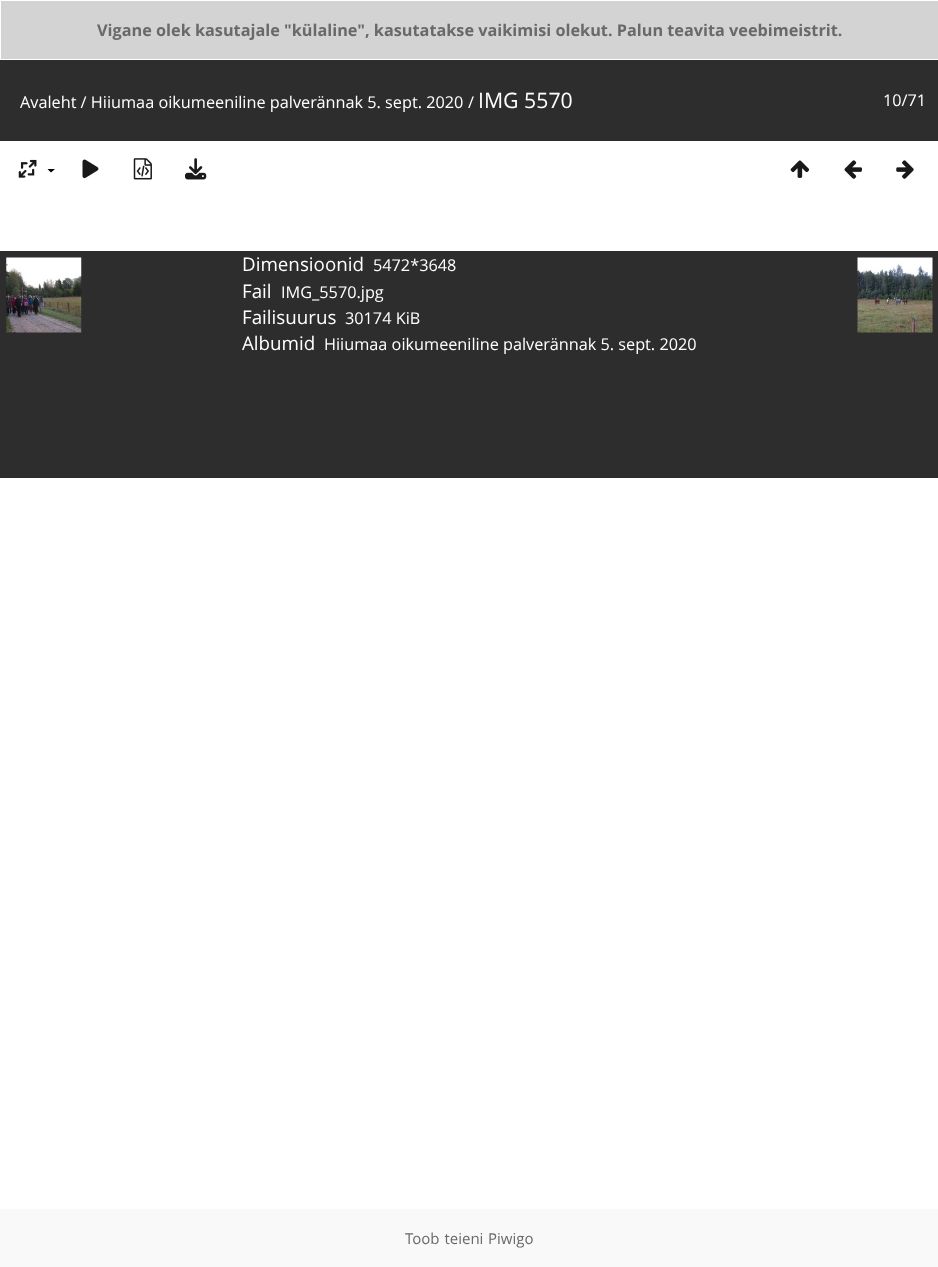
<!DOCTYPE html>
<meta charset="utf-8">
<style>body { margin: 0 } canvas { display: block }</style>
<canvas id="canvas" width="938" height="1267"></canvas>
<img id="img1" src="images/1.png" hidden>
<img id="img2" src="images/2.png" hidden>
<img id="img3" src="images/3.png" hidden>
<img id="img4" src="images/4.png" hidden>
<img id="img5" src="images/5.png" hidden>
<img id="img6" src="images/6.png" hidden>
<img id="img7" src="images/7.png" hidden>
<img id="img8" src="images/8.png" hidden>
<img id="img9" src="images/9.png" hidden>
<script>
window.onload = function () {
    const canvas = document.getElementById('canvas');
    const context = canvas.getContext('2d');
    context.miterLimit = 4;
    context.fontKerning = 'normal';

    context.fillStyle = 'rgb(255, 255, 255)';
    context.fillRect(0, 0, 938, 1267);
    context.fillStyle = 'rgb(211, 211, 211)';
    context.fillRect(1, 1, 937, 58);
    context.fillStyle = 'rgb(45, 45, 45)';
    context.fillRect(0, 60, 938, 81);
    context.drawImage(document.getElementById('img1'), 18, 159, 19, 19);
    context.fillStyle = 'rgb(0, 0, 0)';
    context.beginPath();
    context.moveTo(47.5, 169);
    context.lineTo(55, 169);
    context.lineTo(51, 172.5);
    context.closePath();
    context.fill();
    context.drawImage(document.getElementById('img2'), 82, 159, 17, 20);
    context.drawImage(document.getElementById('img3'), 133, 158, 19, 22);
    context.drawImage(document.getElementById('img4'), 185, 158, 22, 22);
    context.drawImage(document.getElementById('img5'), 790, 160, 20, 18);
    context.drawImage(document.getElementById('img6'), 844, 160, 18, 19);
    context.drawImage(document.getElementById('img7'), 896, 160, 18, 19);
    context.fillStyle = 'rgb(45, 45, 45)';
    context.fillRect(0, 251, 938, 227);
    context.drawImage(document.getElementById('img8'), 6, 257, 76, 76);
    context.drawImage(document.getElementById('img9'), 857, 257, 76, 76);
    context.fillStyle = 'rgb(249, 249, 249)';
    context.fillRect(0, 1209, 938, 58);
    context.font = 'bold 16.25px Open Sans';
    context.fillStyle = 'rgb(105, 105, 105)';
    context.fillText('Vigane olek kasutajale "külaline", kasutatakse vaikimisi olekut. Palun teavita veebimeistrit.', 97, 36);
    context.font = '16.25px Open Sans';
    context.fillStyle = 'rgb(255, 255, 255)';
    context.fillText('Avaleht / Hiiumaa oikumeeniline palverännak 5. sept. 2020', 20, 108);
    context.fillText('/', 468, 108);
    context.font = '21.25px Open Sans';
    context.fillText('IMG 5570', 478, 108);
    context.font = '16.25px Open Sans';
    context.fillText('10/71', 883, 106);
    context.font = '18.75px Open Sans';
    context.fillText('Dimensioonid', 242, 271);
    context.font = '16.25px Open Sans';
    context.fillText('5472*3648', 373, 271);
    context.font = '18.75px Open Sans';
    context.fillText('Fail', 242, 298);
    context.font = '16.25px Open Sans';
    context.fillText('IMG_5570.jpg', 281, 298);
    context.font = '18.75px Open Sans';
    context.fillText('Failisuurus', 242, 324);
    context.font = '16.25px Open Sans';
    context.fillText('30174 KiB', 345, 324);
    context.font = '18.75px Open Sans';
    context.fillText('Albumid', 242, 350);
    context.font = '16.25px Open Sans';
    context.fillText('Hiiumaa oikumeeniline palverännak 5. sept. 2020', 324, 350);
    context.wordSpacing = '1px';
    context.font = '15px Open Sans';
    context.fillStyle = 'rgb(105, 105, 105)';
    context.fillText('Toob teieni', 405, 1244);
    context.wordSpacing = '0px';
    context.fillText('Piwigo', 488, 1244);
};
</script>
